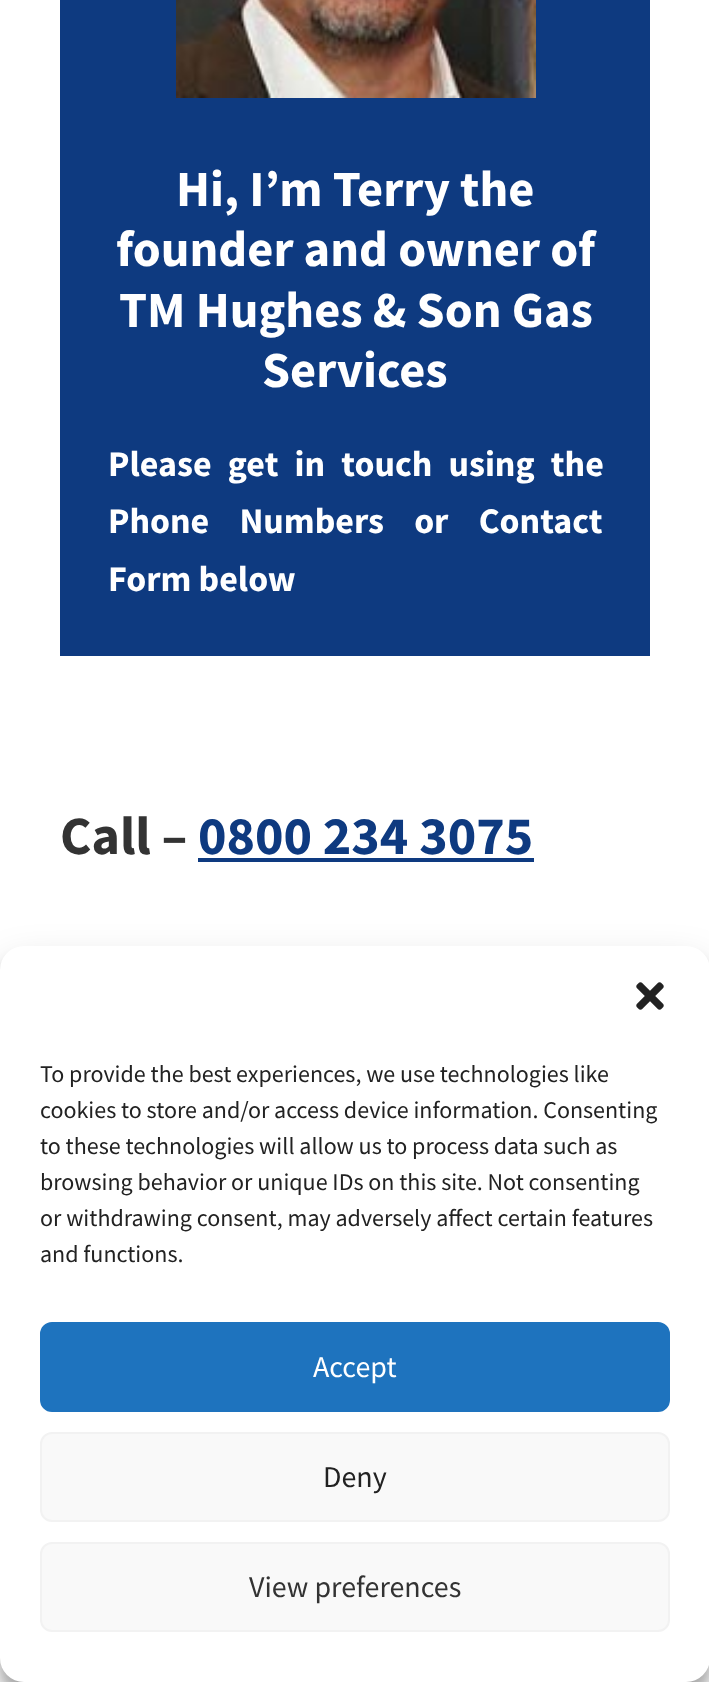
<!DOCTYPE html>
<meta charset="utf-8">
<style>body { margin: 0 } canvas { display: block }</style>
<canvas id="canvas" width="709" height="1682"></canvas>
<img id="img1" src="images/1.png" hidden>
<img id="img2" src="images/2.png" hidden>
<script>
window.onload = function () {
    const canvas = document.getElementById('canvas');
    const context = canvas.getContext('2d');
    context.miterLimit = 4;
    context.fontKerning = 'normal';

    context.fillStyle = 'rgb(255, 255, 255)';
    context.fillRect(0, 0, 709, 1682);
    context.fillStyle = 'rgb(14, 58, 128)';
    context.fillRect(60, 0, 590, 656);
    context.drawImage(document.getElementById('img1'), 176, 0, 360, 98);
    context.fillRect(198, 858, 336, 4);
    context.fillStyle = 'rgba(0, 0, 0, 0.23)';
    context.filter = 'blur(6px)';
    context.beginPath();
    context.roundRect(0, 958, 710, 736, 24);
    context.fill();
    context.filter = 'none';
    context.fillStyle = 'rgba(0, 0, 0, 0.19)';
    context.filter = 'blur(20px)';
    context.beginPath();
    context.roundRect(0, 966, 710, 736, 24);
    context.fill();
    context.filter = 'none';
    context.fillStyle = 'rgb(255, 255, 255)';
    context.beginPath();
    context.roundRect(0, 946, 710, 736, 24);
    context.fill();
    context.drawImage(document.getElementById('img2'), 636, 982, 28, 28);
    context.fillStyle = 'rgb(30, 115, 190)';
    context.beginPath();
    context.roundRect(41, 1323, 628, 88, 11);
    context.fill();
    context.strokeStyle = 'rgb(30, 115, 190)';
    context.lineWidth = 2;
    context.stroke();
    context.fillStyle = 'rgb(249, 249, 249)';
    context.beginPath();
    context.roundRect(41, 1433, 628, 88, 11);
    context.fill();
    context.strokeStyle = 'rgb(242, 242, 242)';
    context.stroke();
    context.beginPath();
    context.roundRect(41, 1543, 628, 88, 11);
    context.fill();
    context.stroke();
    context.font = 'bold 50.5px Source Sans Pro';
    context.fillStyle = 'rgb(255, 255, 255)';
    context.fillText('Hi, I’m Terry the', 176, 206);
    context.fillText('founder and owner of', 116, 266);
    context.fillText('TM Hughes & Son Gas', 119, 327);
    context.fillText('Services', 262, 387);
    context.wordSpacing = '9px';
    context.font = 'bold 36px Source Sans Pro';
    context.fillText('Please get in touch using the', 108, 476);
    context.wordSpacing = '23px';
    context.fillText('Phone Numbers or Contact', 108, 533);
    context.wordSpacing = '0px';
    context.fillText('Form below', 108, 591);
    context.font = 'bold 54px Source Sans Pro';
    context.fillStyle = 'rgb(51, 51, 51)';
    context.fillText('Call –', 60, 854);
    context.fillStyle = 'rgb(14, 58, 128)';
    context.fillText('0800 234 3075', 198, 854);
    context.font = '24px Source Sans Pro';
    context.fillStyle = 'rgb(34, 34, 34)';
    context.fillText('To provide the best experiences, we use technologies like', 40, 1082);
    context.fillText('cookies to store and/or access device information. Consenting', 40, 1118);
    context.fillText('to these technologies will allow us to process data such as', 40, 1154);
    context.fillText('browsing behavior or unique IDs on this site. Not consenting', 40, 1190);
    context.fillText('or withdrawing consent, may adversely affect certain features', 40, 1226);
    context.fillText('and functions.', 40, 1262);
    context.font = '30px Source Sans Pro';
    context.fillStyle = 'rgb(255, 255, 255)';
    context.fillText('Accept', 313, 1377);
    context.fillStyle = 'rgb(34, 34, 34)';
    context.fillText('Deny', 323, 1487);
    context.fillStyle = 'rgb(51, 51, 51)';
    context.fillText('View preferences', 249, 1597);
};
</script>
